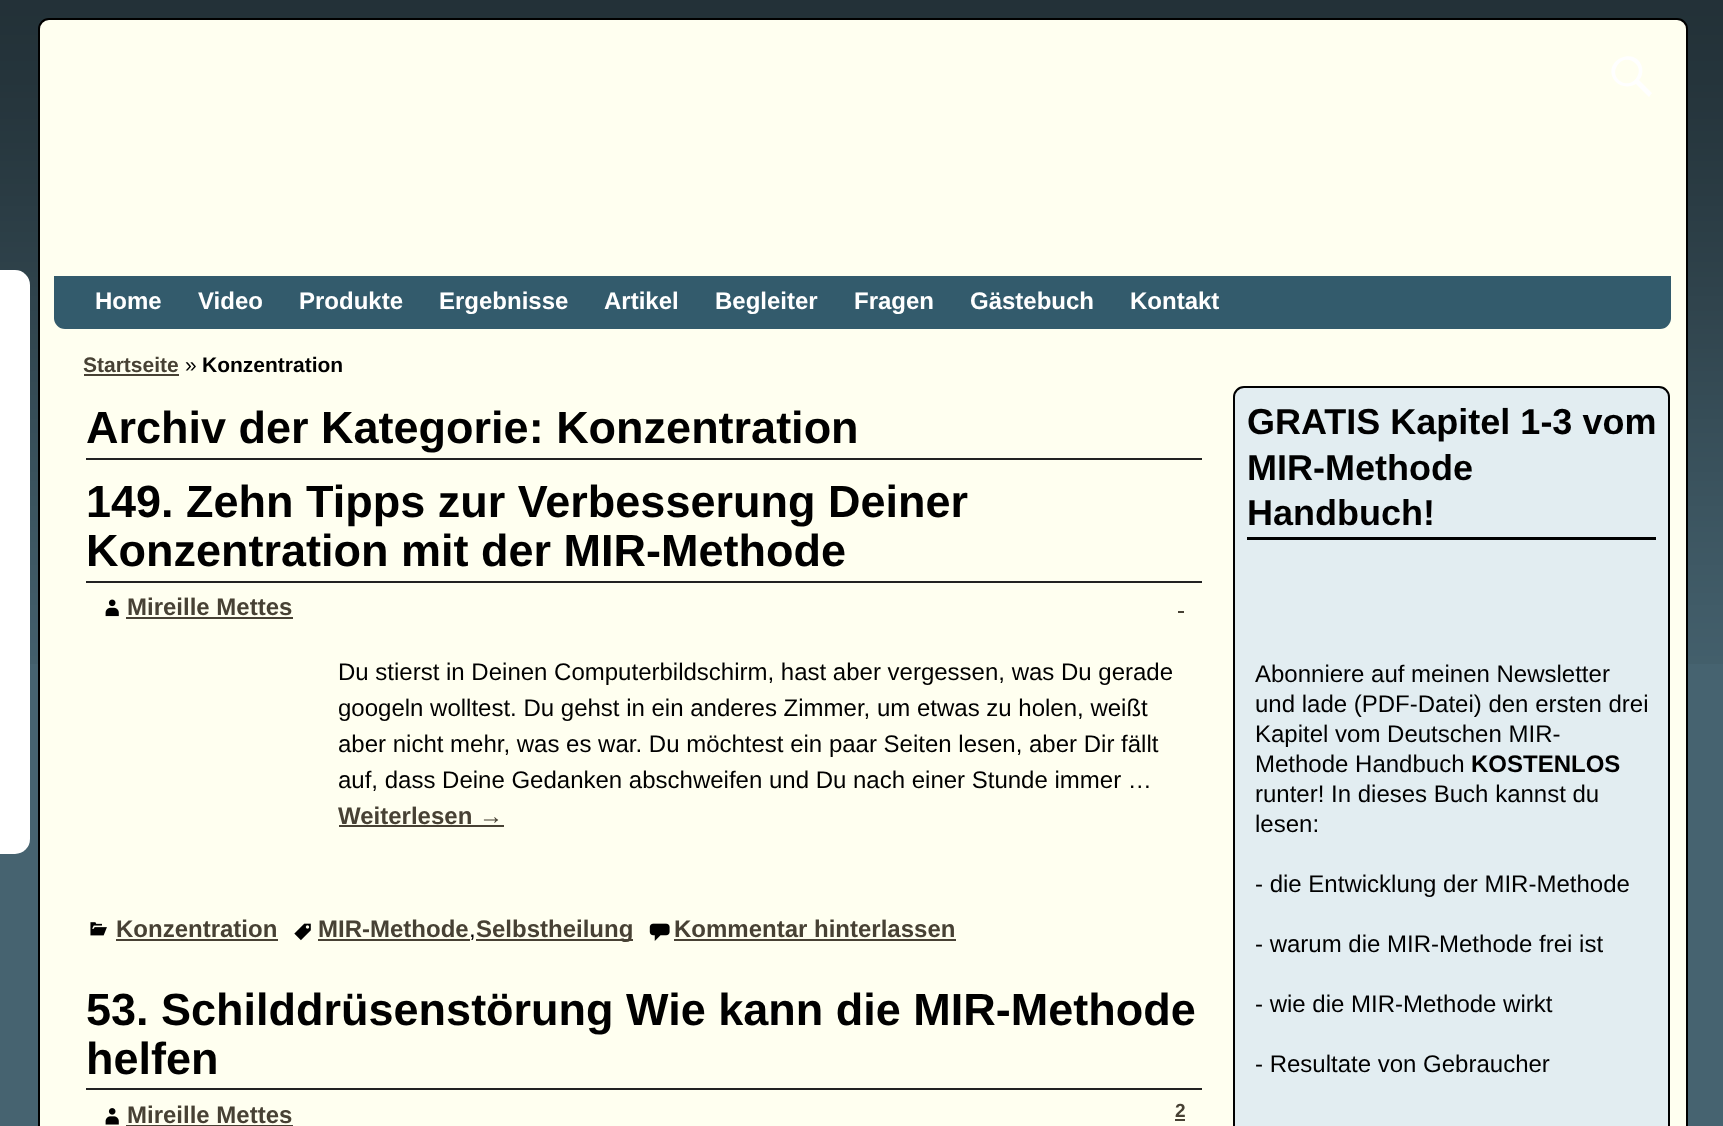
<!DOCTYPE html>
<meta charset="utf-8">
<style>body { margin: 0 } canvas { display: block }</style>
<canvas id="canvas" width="1723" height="1126"></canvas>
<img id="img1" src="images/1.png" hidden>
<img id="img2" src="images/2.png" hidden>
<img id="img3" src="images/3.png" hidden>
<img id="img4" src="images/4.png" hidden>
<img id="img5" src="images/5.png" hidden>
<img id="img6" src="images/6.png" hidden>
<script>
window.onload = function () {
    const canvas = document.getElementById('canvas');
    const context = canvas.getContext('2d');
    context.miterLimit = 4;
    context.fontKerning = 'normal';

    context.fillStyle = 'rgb(70, 99, 112)';
    context.fillRect(0, 0, 1723, 1126);
    context.drawImage(document.getElementById('img1'), 0, 0, 1723, 664);
    context.fillStyle = 'rgb(255, 255, 240)';
    context.beginPath();
    context.roundRect(39, 19, 1648, 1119, 10);
    context.fill();
    context.strokeStyle = 'rgb(0, 0, 0)';
    context.lineWidth = 2;
    context.stroke();
    context.fillStyle = 'rgb(255, 255, 255)';
    context.beginPath();
    context.moveTo(1652, 93);
    context.lineTo(1649, 97);
    context.lineTo(1636, 84);
    context.bezierCurveTo(1628, 89, 1617, 86, 1613, 78);
    context.bezierCurveTo(1604, 59, 1636, 46, 1642, 67);
    context.bezierCurveTo(1643, 72, 1642, 77, 1639, 80);
    context.closePath();
    context.moveTo(1617, 66);
    context.bezierCurveTo(1609, 79, 1629, 91, 1637, 77);
    context.bezierCurveTo(1645, 64, 1625, 52, 1617, 66);
    context.closePath();
    context.fill();
    context.beginPath();
    context.roundRect(-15, 270, 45, 584, 15);
    context.fill();
    context.fillStyle = 'rgb(51, 91, 108)';
    context.beginPath();
    context.roundRect(54, 276, 1617, 53, [0, 0, 11, 11]);
    context.fill();
    context.fillStyle = 'rgb(71, 65, 52)';
    context.fillRect(84, 374, 95, 2);
    context.fillStyle = 'rgb(34, 34, 34)';
    context.fillRect(86, 458, 1116, 2);
    context.fillRect(86, 581, 1116, 2);
    context.drawImage(document.getElementById('img2'), 105, 599, 14, 18);
    context.fillStyle = 'rgb(71, 65, 52)';
    context.fillRect(126, 617, 167, 2);
    context.fillRect(1178, 611, 6, 2);
    context.fillRect(339, 825, 165, 2);
    context.drawImage(document.getElementById('img3'), 90, 922, 17, 14);
    context.fillRect(116, 939, 162, 2);
    context.drawImage(document.getElementById('img4'), 294, 923, 17, 18);
    context.fillRect(318, 939, 152, 2);
    context.fillRect(476, 939, 157, 2);
    context.drawImage(document.getElementById('img5'), 649, 923, 21, 18);
    context.fillRect(674, 939, 282, 2);
    context.fillStyle = 'rgb(34, 34, 34)';
    context.fillRect(86, 1088, 1116, 2);
    context.drawImage(document.getElementById('img6'), 105, 1108, 14, 17);
    context.fillStyle = 'rgb(71, 65, 52)';
    context.fillRect(126, 1125, 167, 1);
    context.fillRect(1175, 1119, 10, 2);
    context.fillStyle = 'rgb(226, 237, 241)';
    context.beginPath();
    context.roundRect(1234, 387, 435, 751, 10);
    context.fill();
    context.stroke();
    context.fillStyle = 'rgb(0, 0, 0)';
    context.fillRect(1247, 537, 409, 3);
    context.font = 'bold 24px Liberation Sans';
    context.fillStyle = 'rgb(255, 255, 255)';
    context.fillText('Home', 95, 309);
    context.fillText('Video', 198, 309);
    context.fillText('Produkte', 299, 309);
    context.fillText('Ergebnisse', 439, 309);
    context.fillText('Artikel', 604, 309);
    context.fillText('Begleiter', 715, 309);
    context.fillText('Fragen', 854, 309);
    context.fillText('Gästebuch', 970, 309);
    context.fillText('Kontakt', 1130, 309);
    context.font = 'bold 21px Liberation Sans';
    context.fillStyle = 'rgb(71, 65, 52)';
    context.fillText('Startseite', 83, 372);
    context.font = '21px Liberation Sans';
    context.fillStyle = 'rgb(0, 0, 0)';
    context.fillText('»', 185, 372);
    context.font = 'bold 21px Liberation Sans';
    context.fillText('Konzentration', 202, 372);
    context.font = 'bold 45px Liberation Sans';
    context.fillText('Archiv der Kategorie: Konzentration', 86, 443);
    context.fillText('149. Zehn Tipps zur Verbesserung Deiner', 86, 517);
    context.fillText('Konzentration mit der MIR-Methode', 86, 566);
    context.font = 'bold 24px Liberation Sans';
    context.fillStyle = 'rgb(71, 65, 52)';
    context.fillText('Mireille Mettes', 127, 615);
    context.font = '24px Liberation Sans';
    context.fillStyle = 'rgb(0, 0, 0)';
    context.fillText('Du stierst in Deinen Computerbildschirm, hast aber vergessen, was Du gerade', 338, 680);
    context.fillText('googeln wolltest. Du gehst in ein anderes Zimmer, um etwas zu holen, weißt', 338, 716);
    context.fillText('aber nicht mehr, was es war. Du möchtest ein paar Seiten lesen, aber Dir fällt', 338, 752);
    context.fillText('auf, dass Deine Gedanken abschweifen und Du nach einer Stunde immer …', 338, 788);
    context.font = 'bold 24px Liberation Sans';
    context.fillStyle = 'rgb(71, 65, 52)';
    context.fillText('Weiterlesen →', 338, 824);
    context.fillText('Konzentration', 116, 937);
    context.fillText('MIR-Methode', 318, 937);
    context.font = '24px Liberation Sans';
    context.fillStyle = 'rgb(0, 0, 0)';
    context.fillText(',', 469, 937);
    context.font = 'bold 24px Liberation Sans';
    context.fillStyle = 'rgb(71, 65, 52)';
    context.fillText('Selbstheilung', 476, 937);
    context.fillText('Kommentar hinterlassen', 674, 937);
    context.font = 'bold 45px Liberation Sans';
    context.fillStyle = 'rgb(0, 0, 0)';
    context.fillText('53. Schilddrüsenstörung Wie kann die MIR-Methode', 86, 1025);
    context.fillText('helfen', 86, 1074);
    context.font = 'bold 24px Liberation Sans';
    context.fillStyle = 'rgb(71, 65, 52)';
    context.fillText('Mireille Mettes', 127, 1123);
    context.font = 'bold 19px Liberation Sans';
    context.fillText('2', 1175, 1117);
    context.font = 'bold 36px Liberation Sans';
    context.fillStyle = 'rgb(0, 0, 0)';
    context.fillText('GRATIS Kapitel 1-3 vom', 1247, 434);
    context.fillText('MIR-Methode', 1247, 480);
    context.fillText('Handbuch!', 1247, 525);
    context.font = '24px Liberation Sans';
    context.fillText('Abonniere auf meinen Newsletter', 1255, 682);
    context.fillText('und lade (PDF-Datei) den ersten drei', 1255, 712);
    context.fillText('Kapitel vom Deutschen MIR-', 1255, 742);
    context.fillText('Methode Handbuch', 1255, 772);
    context.font = 'bold 24px Liberation Sans';
    context.fillText('KOSTENLOS', 1471, 772);
    context.font = '24px Liberation Sans';
    context.fillText('runter! In dieses Buch kannst du', 1255, 802);
    context.fillText('lesen:', 1255, 832);
    context.fillText('- die Entwicklung der MIR-Methode', 1255, 892);
    context.fillText('- warum die MIR-Methode frei ist', 1255, 952);
    context.fillText('- wie die MIR-Methode wirkt', 1255, 1012);
    context.fillText('- Resultate von Gebraucher', 1255, 1072);
};
</script>
